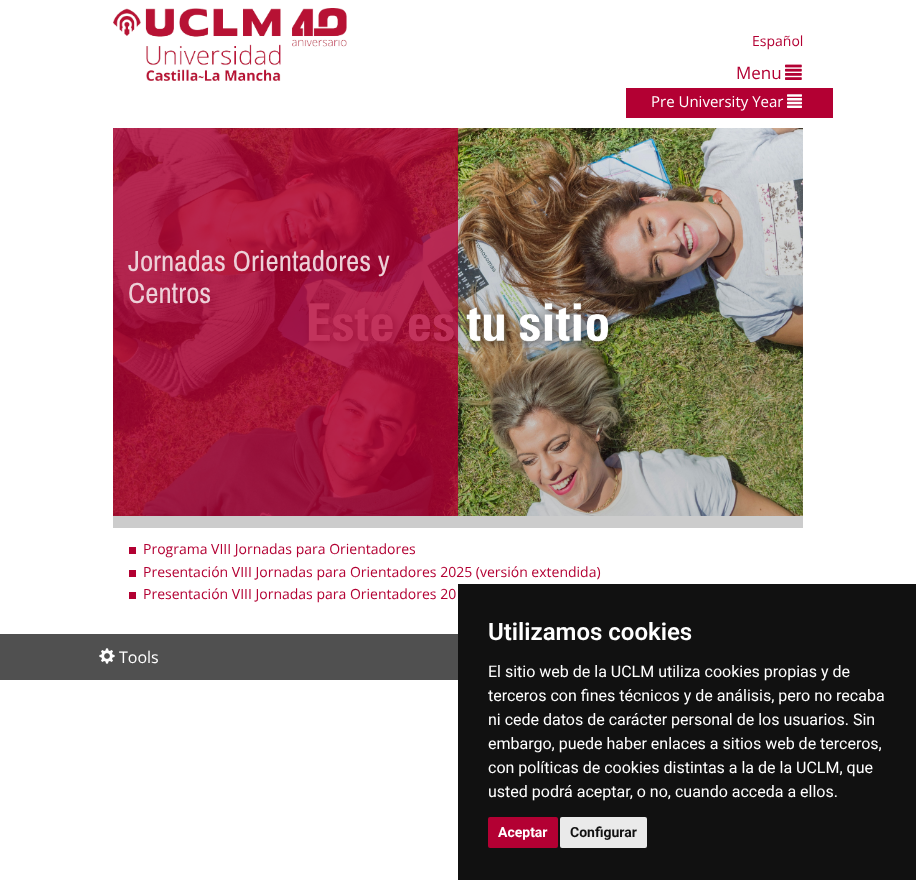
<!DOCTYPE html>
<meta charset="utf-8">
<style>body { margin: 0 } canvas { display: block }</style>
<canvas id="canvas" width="916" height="880"></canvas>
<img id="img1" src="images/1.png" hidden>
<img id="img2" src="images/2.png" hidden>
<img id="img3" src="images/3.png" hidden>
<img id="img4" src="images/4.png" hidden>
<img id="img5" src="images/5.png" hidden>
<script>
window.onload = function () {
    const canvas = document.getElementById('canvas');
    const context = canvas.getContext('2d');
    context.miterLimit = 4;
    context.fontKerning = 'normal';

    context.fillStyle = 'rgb(255, 255, 255)';
    context.fillRect(0, 0, 916, 880);
    context.drawImage(document.getElementById('img1'), 113, 8, 234, 73);
    context.drawImage(document.getElementById('img2'), 785, 64, 17, 16);
    context.fillStyle = 'rgb(179, 0, 51)';
    context.fillRect(626, 88, 207, 30);
    context.drawImage(document.getElementById('img3'), 787, 94, 15, 14);
    context.drawImage(document.getElementById('img4'), 113, 128, 690, 388);
    context.fillStyle = 'rgba(179, 0, 51, 0.8)';
    context.fillRect(113, 128, 345, 388);
    context.fillStyle = 'rgb(204, 204, 204)';
    context.fillRect(113, 516, 690, 12);
    context.fillStyle = 'rgb(178, 0, 50)';
    context.fillRect(129, 547, 7, 7);
    context.fillRect(129, 570, 7, 7);
    context.fillRect(129, 592, 7, 7);
    context.fillStyle = 'rgb(80, 80, 80)';
    context.fillRect(0, 634, 458, 46);
    context.drawImage(document.getElementById('img5'), 99, 648, 16, 16);
    context.fillStyle = 'rgb(17, 17, 17)';
    context.fillRect(458, 584, 458, 296);
    context.fillStyle = 'rgb(179, 0, 51)';
    context.beginPath();
    context.roundRect(488, 817, 70, 31, 2);
    context.fill();
    context.fillStyle = 'rgb(234, 234, 234)';
    context.beginPath();
    context.roundRect(560, 817, 87, 31, 2);
    context.fill();
    context.font = '14px Open Sans';
    context.fillStyle = 'rgb(179, 0, 51)';
    context.fillText('Español', 752, 46);
    context.font = '17px Open Sans';
    context.fillText('Menu', 736, 79);
    context.font = '15px Open Sans';
    context.fillStyle = 'rgb(255, 255, 255)';
    context.fillText('Pre University Year', 651, 107);
    context.font = '29px Archivo Narrow';
    context.fillStyle = 'rgb(237, 208, 216)';
    context.fillText('Jornadas Orientadores y', 128, 271);
    context.fillText('Centros', 128, 303);
    context.font = '14px Open Sans';
    context.fillStyle = 'rgb(179, 0, 51)';
    context.fillText('Programa VIII Jornadas para Orientadores', 143, 554);
    context.fillText('Presentación VIII Jornadas para Orientadores 2025 (versión extendida)', 143, 577);
    context.fillText('Presentación VIII Jornadas para Orientadores 20', 143, 599);
    context.font = '16px Open Sans';
    context.fillStyle = 'rgb(255, 255, 255)';
    context.fillText('Tools', 119, 663);
    context.font = '600 24px Roboto';
    context.fillText('Utilizamos cookies', 488, 640);
    context.font = '16px Roboto';
    context.fillText('El sitio web de la UCLM utiliza cookies propias y de', 488, 677);
    context.fillText('terceros con fines técnicos y de análisis, pero no recaba', 488, 701);
    context.fillText('ni cede datos de carácter personal de los usuarios. Sin', 488, 725);
    context.fillText('embargo, puede haber enlaces a sitios web de terceros,', 488, 749);
    context.fillText('con políticas de cookies distintas a la de la UCLM, que', 488, 773);
    context.fillText('usted podrá aceptar, o no, cuando acceda a ellos.', 488, 797);
    context.font = 'bold 14px Roboto';
    context.fillText('Aceptar', 498, 837);
    context.fillStyle = 'rgb(17, 17, 17)';
    context.fillText('Configurar', 570, 837);
};
</script>
